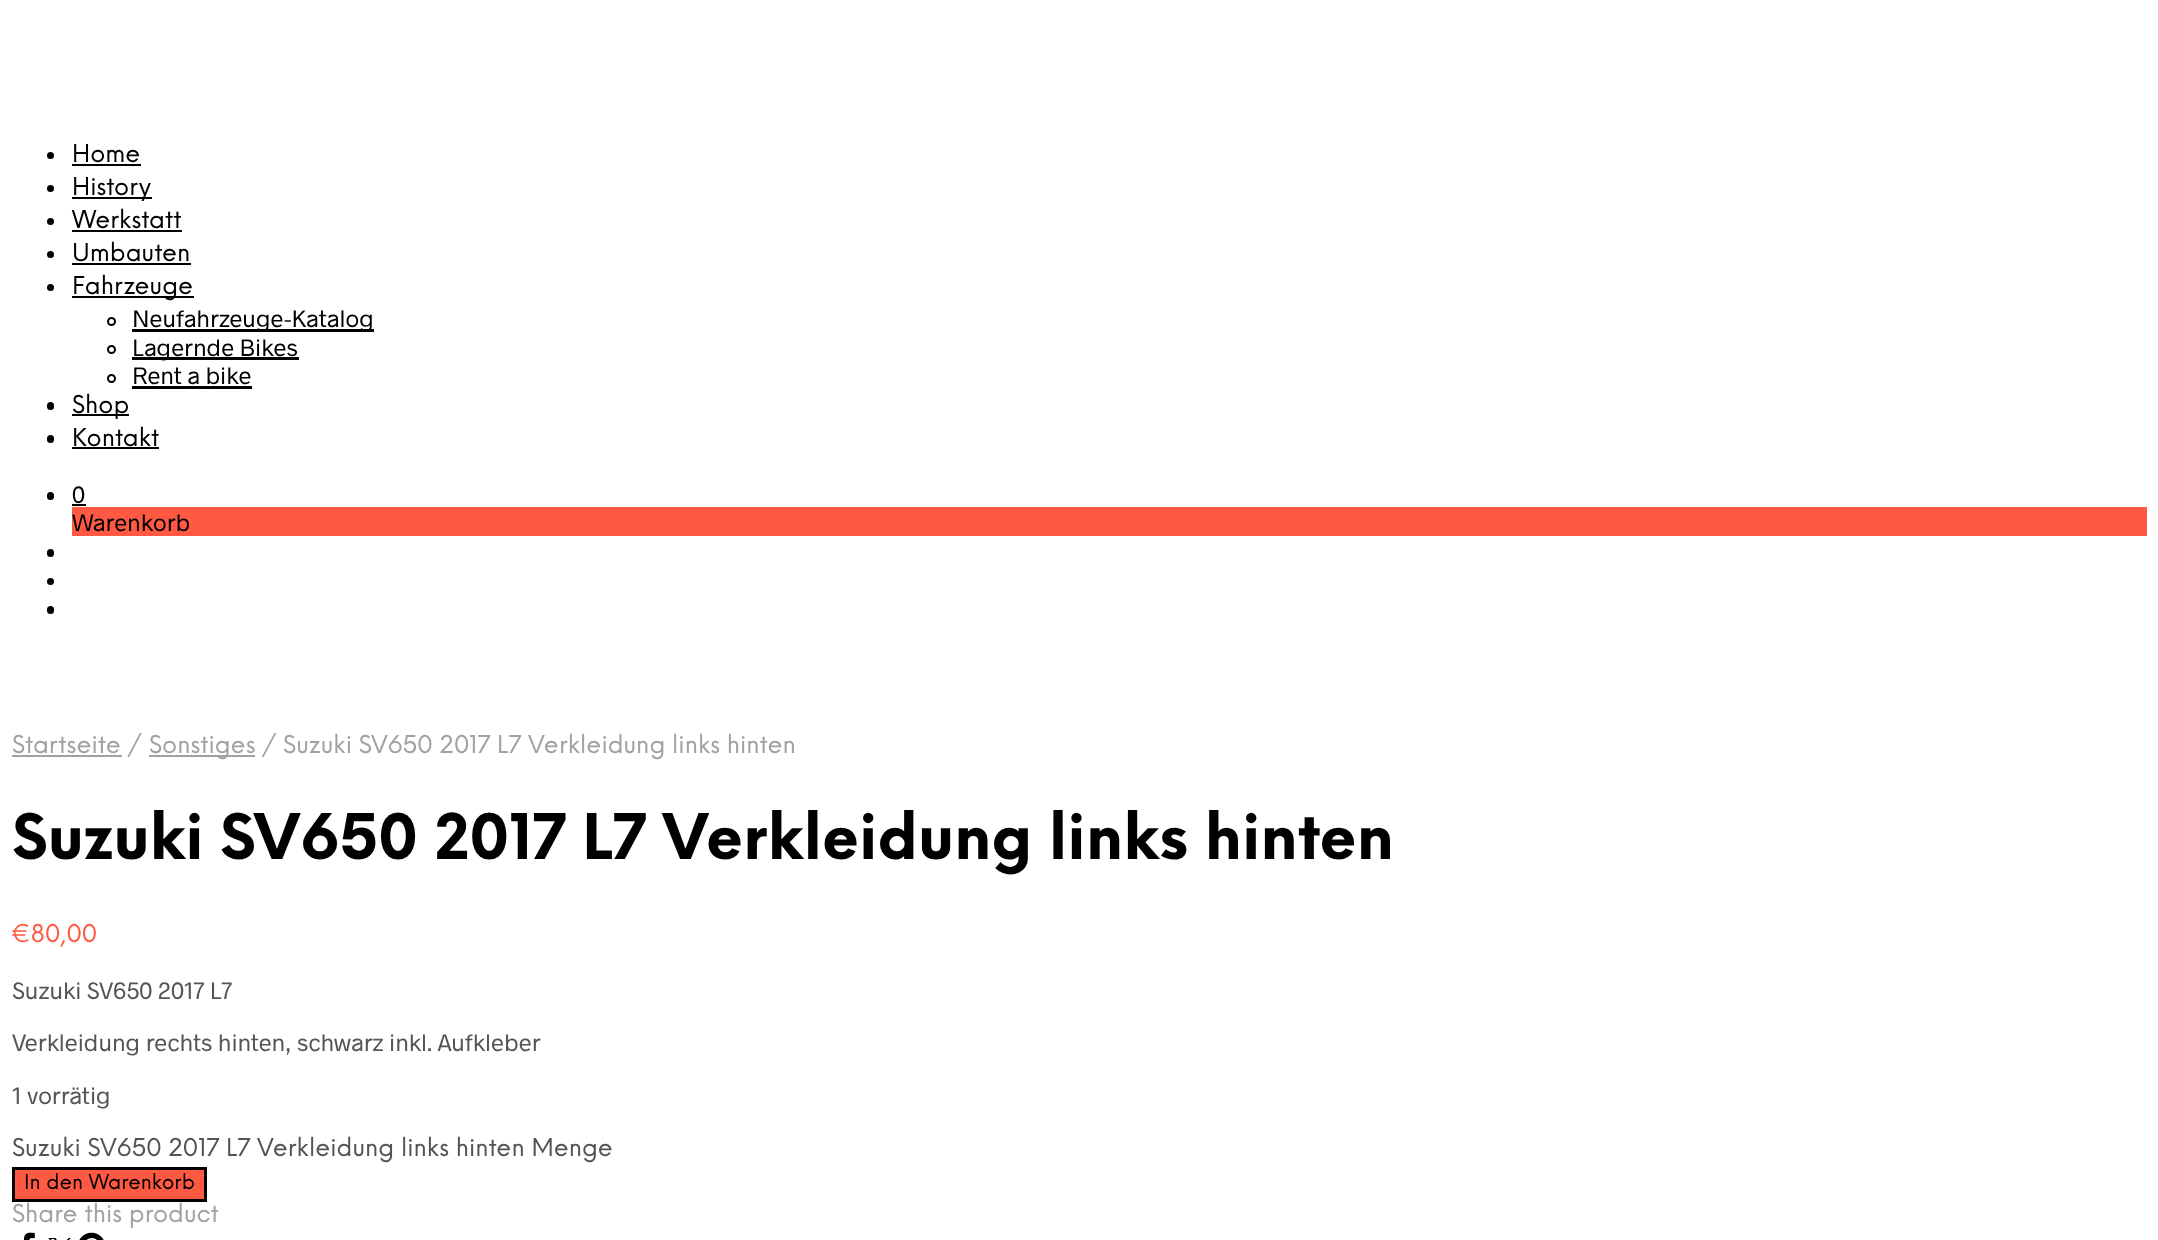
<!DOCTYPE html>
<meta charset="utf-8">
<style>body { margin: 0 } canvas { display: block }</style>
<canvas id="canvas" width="2158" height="1240"></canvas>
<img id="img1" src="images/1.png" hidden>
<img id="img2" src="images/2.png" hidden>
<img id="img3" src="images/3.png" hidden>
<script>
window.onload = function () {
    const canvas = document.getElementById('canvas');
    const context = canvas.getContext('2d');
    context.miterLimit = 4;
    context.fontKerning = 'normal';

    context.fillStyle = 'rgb(255, 255, 255)';
    context.fillRect(0, 0, 2158, 1240);
    context.fillStyle = 'rgb(0, 0, 0)';
    context.beginPath();
    context.arc(50.5, 155.5, 3.5, 0, 2 * Math.PI);
    context.fill();
    context.fillRect(72, 164, 69, 2);
    context.beginPath();
    context.arc(50.5, 188.5, 3.5, 0, 2 * Math.PI);
    context.fill();
    context.fillRect(72, 197, 80, 2);
    context.beginPath();
    context.arc(50.5, 221.5, 3.5, 0, 2 * Math.PI);
    context.fill();
    context.fillRect(72, 230, 110, 2);
    context.beginPath();
    context.arc(50.5, 254.5, 3.5, 0, 2 * Math.PI);
    context.fill();
    context.fillRect(72, 263, 119, 2);
    context.beginPath();
    context.arc(50.5, 287.5, 3.5, 0, 2 * Math.PI);
    context.fill();
    context.fillRect(72, 296, 122, 2);
    context.beginPath();
    context.arc(111.5, 321.5, 3.5, 0, 2 * Math.PI);
    context.strokeStyle = 'rgb(0, 0, 0)';
    context.lineWidth = 2;
    context.stroke();
    context.fillRect(132, 329, 242, 3);
    context.beginPath();
    context.arc(111.5, 349.5, 3.5, 0, 2 * Math.PI);
    context.stroke();
    context.fillRect(132, 357, 167, 3);
    context.beginPath();
    context.arc(111.5, 378.5, 3.5, 0, 2 * Math.PI);
    context.stroke();
    context.fillRect(132, 386, 120, 3);
    context.beginPath();
    context.roundRect(47, 402, 7, 8, 3.5);
    context.fill();
    context.fillRect(72, 414, 57, 2);
    context.beginPath();
    context.roundRect(47, 435, 7, 8, 3.5);
    context.fill();
    context.fillRect(72, 447, 87, 2);
    context.beginPath();
    context.roundRect(47, 492, 7, 8, 3.5);
    context.fill();
    context.fillRect(72, 504, 14, 2);
    context.fillStyle = 'rgb(255, 89, 67)';
    context.fillRect(72, 507, 2075, 29);
    context.fillStyle = 'rgb(0, 0, 0)';
    context.beginPath();
    context.roundRect(47, 549, 7, 8, 3.5);
    context.fill();
    context.beginPath();
    context.arc(50.5, 581.5, 3.5, 0, 2 * Math.PI);
    context.fill();
    context.beginPath();
    context.roundRect(47, 606, 7, 8, 3.5);
    context.fill();
    context.fillStyle = 'rgb(161, 161, 161)';
    context.fillRect(12, 755, 110, 2);
    context.fillRect(149, 755, 106, 2);
    context.fillStyle = 'rgb(255, 89, 67)';
    context.beginPath();
    context.rect(13.5, 1168.5, 192, 32);
    context.fill();
    context.lineWidth = 3;
    context.stroke();
    context.drawImage(document.getElementById('img1'), 24, 1232, 11, 8);
    context.drawImage(document.getElementById('img2'), 48, 1238, 23, 2);
    context.drawImage(document.getElementById('img3'), 79, 1232, 25, 8);
    context.font = '24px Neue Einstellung';
    context.fillStyle = 'rgb(0, 0, 0)';
    context.fillText('Home', 72, 162);
    context.fillText('History', 72, 195);
    context.fillText('Werkstatt', 72, 228);
    context.fillText('Umbauten', 72, 261);
    context.fillText('Fahrzeuge', 72, 294);
    context.font = '24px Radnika';
    context.fillText('Neufahrzeuge-Katalog', 132, 327);
    context.fillText('Lagernde Bikes', 132, 356);
    context.fillText('Rent a bike', 132, 384);
    context.font = '24px Neue Einstellung';
    context.fillText('Shop', 72, 413);
    context.fillText('Kontakt', 72, 446);
    context.font = '24px Radnika';
    context.fillText('0', 72, 503);
    context.fillText('Warenkorb', 72, 531);
    context.font = '24px Neue Einstellung';
    context.fillStyle = 'rgb(161, 161, 161)';
    context.fillText('Startseite /', 12, 753);
    context.fillText('Sonstiges', 149, 753);
    context.fillText('/ Suzuki SV650 2017 L7 Verkleidung links hinten', 262, 753);
    context.font = 'bold 61.3px Neue Einstellung';
    context.fillStyle = 'rgb(0, 0, 0)';
    context.fillText('Suzuki SV650 2017 L7 Verkleidung links hinten', 12, 859);
    context.font = '24px Neue Einstellung';
    context.fillStyle = 'rgb(255, 89, 67)';
    context.fillText('€80,00', 12, 942);
    context.font = '24px Radnika';
    context.fillStyle = 'rgb(84, 84, 84)';
    context.fillText('Suzuki SV650 2017 L7', 12, 999);
    context.fillText('Verkleidung rechts hinten, schwarz inkl. Aufkleber', 12, 1051);
    context.fillText('1 vorrätig', 12, 1104);
    context.font = '24px Neue Einstellung';
    context.fillText('Suzuki SV650 2017 L7 Verkleidung links hinten Menge', 12, 1156);
    context.font = '20px Neue Einstellung';
    context.fillStyle = 'rgb(0, 0, 0)';
    context.fillText('In den Warenkorb', 24, 1189);
    context.font = '24px Neue Einstellung';
    context.fillStyle = 'rgb(161, 161, 161)';
    context.fillText('Share this product', 12, 1222);
};
</script>
